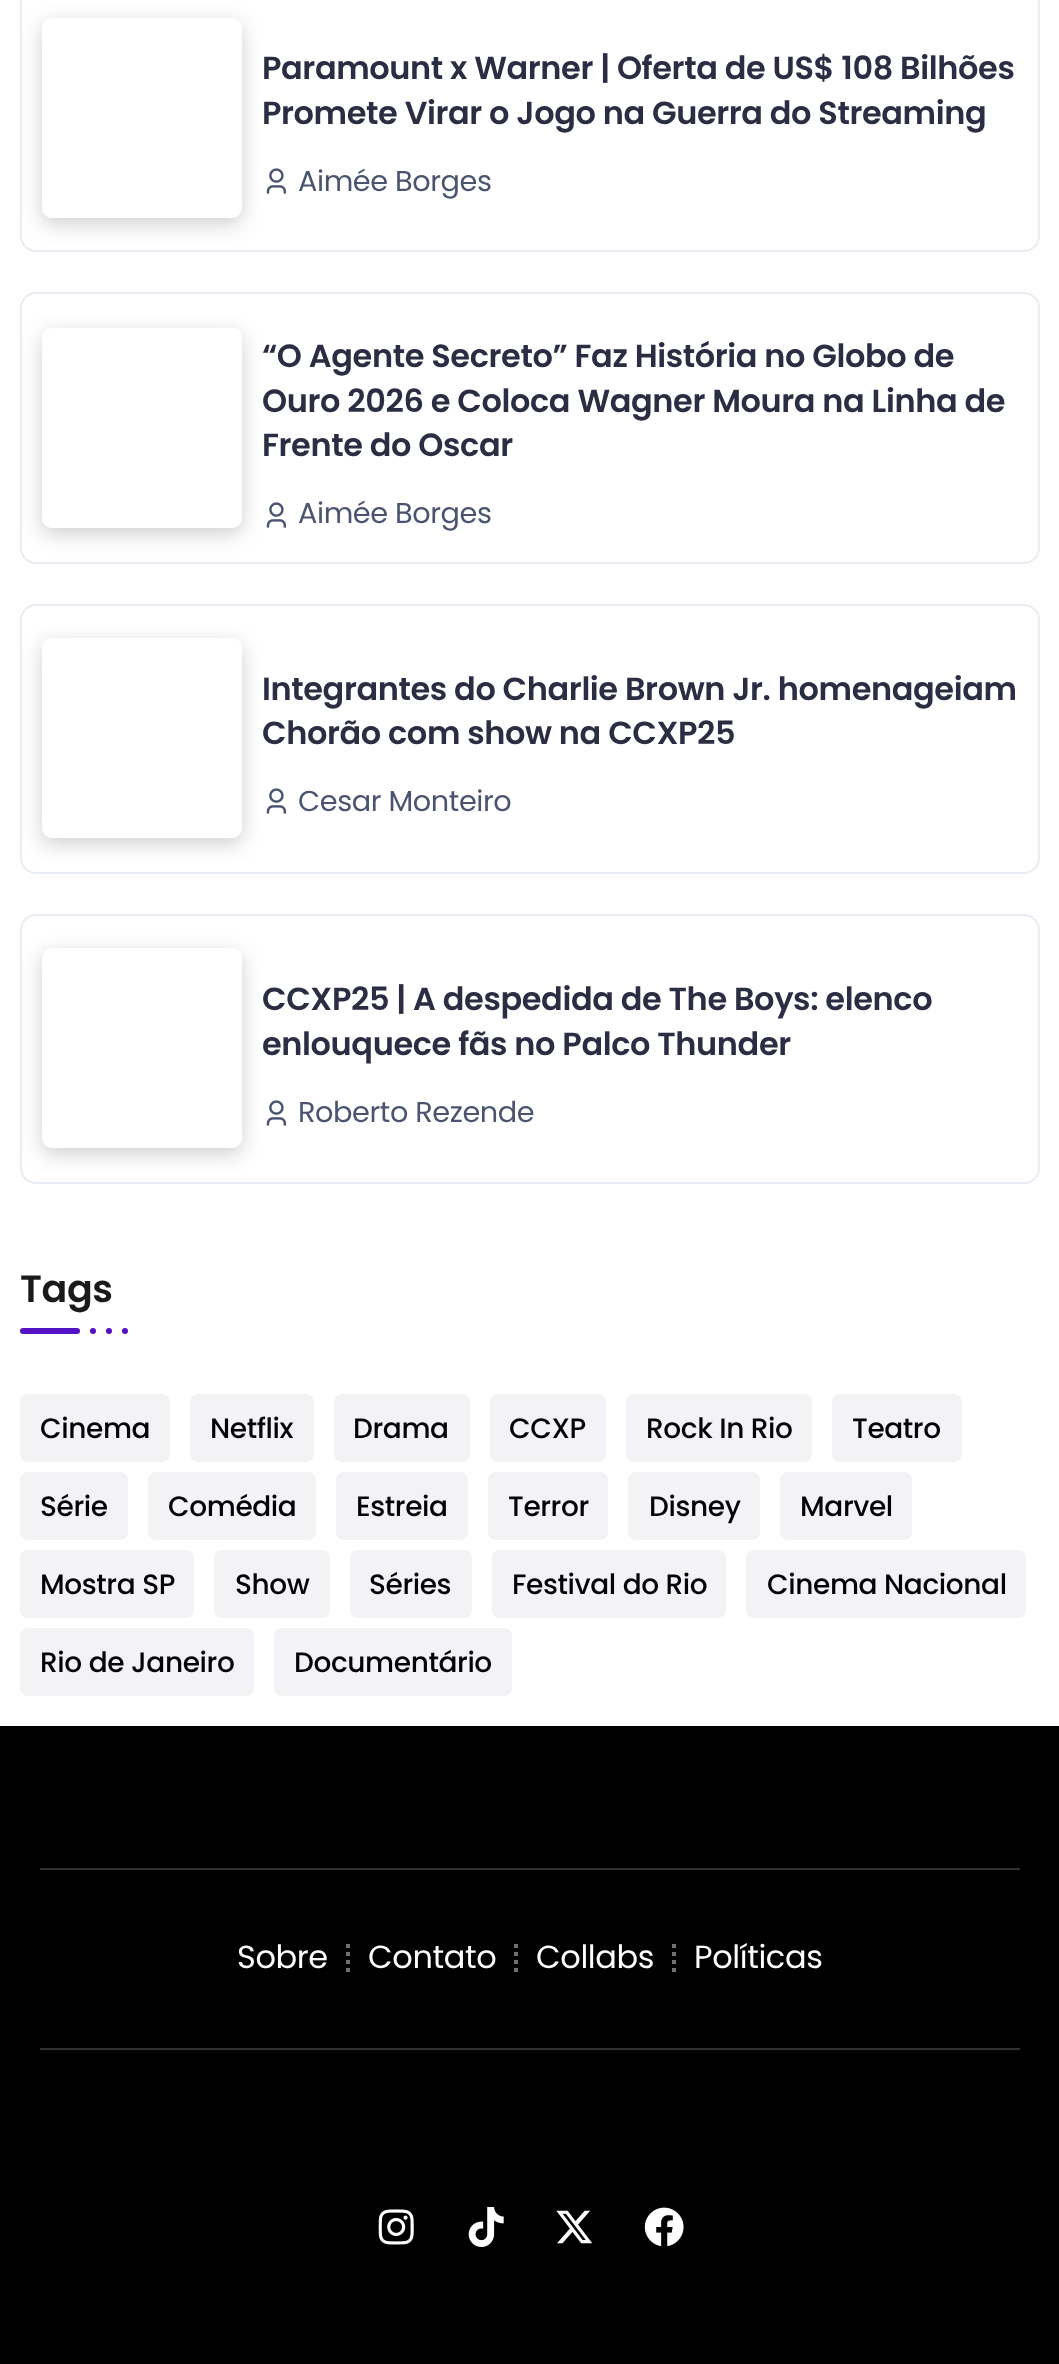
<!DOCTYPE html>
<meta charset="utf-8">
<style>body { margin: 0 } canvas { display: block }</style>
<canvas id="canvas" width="1059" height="2364"></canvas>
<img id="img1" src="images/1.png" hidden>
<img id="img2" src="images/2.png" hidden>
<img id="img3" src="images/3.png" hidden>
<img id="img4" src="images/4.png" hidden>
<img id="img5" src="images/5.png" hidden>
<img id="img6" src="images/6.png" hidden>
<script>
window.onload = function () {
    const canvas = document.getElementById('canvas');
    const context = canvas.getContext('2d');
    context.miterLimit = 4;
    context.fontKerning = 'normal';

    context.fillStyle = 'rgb(255, 255, 255)';
    context.fillRect(0, 0, 1059, 2364);
    context.beginPath();
    context.roundRect(21, -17, 1018, 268, 15);
    context.strokeStyle = 'rgb(232, 236, 243)';
    context.lineWidth = 2;
    context.stroke();
    context.save();
    context.beginPath();
    context.moveTo(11, 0);
    context.lineTo(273, 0);
    context.lineTo(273, 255);
    context.lineTo(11, 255);
    context.closePath();
    context.moveTo(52, 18);
    context.lineTo(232, 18);
    context.bezierCurveTo(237.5, 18, 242, 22.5, 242, 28);
    context.lineTo(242, 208);
    context.bezierCurveTo(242, 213.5, 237.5, 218, 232, 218);
    context.lineTo(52, 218);
    context.bezierCurveTo(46.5, 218, 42, 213.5, 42, 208);
    context.lineTo(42, 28);
    context.bezierCurveTo(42, 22.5, 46.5, 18, 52, 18);
    context.closePath();
    context.clip('evenodd');
    context.fillStyle = 'rgba(52, 53, 54, 0.24)';
    context.filter = 'blur(10px)';
    context.beginPath();
    context.roundRect(42, 24, 200, 200, 10);
    context.fill();
    context.filter = 'none';
    context.restore();
    context.drawImage(document.getElementById('img1'), 266, 168, 20, 26);
    context.beginPath();
    context.roundRect(21, 293, 1018, 270, 15);
    context.stroke();
    context.save();
    context.beginPath();
    context.moveTo(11, 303);
    context.lineTo(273, 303);
    context.lineTo(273, 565);
    context.lineTo(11, 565);
    context.closePath();
    context.moveTo(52, 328);
    context.lineTo(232, 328);
    context.bezierCurveTo(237.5, 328, 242, 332.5, 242, 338);
    context.lineTo(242, 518);
    context.bezierCurveTo(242, 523.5, 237.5, 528, 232, 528);
    context.lineTo(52, 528);
    context.bezierCurveTo(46.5, 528, 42, 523.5, 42, 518);
    context.lineTo(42, 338);
    context.bezierCurveTo(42, 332.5, 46.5, 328, 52, 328);
    context.closePath();
    context.clip('evenodd');
    context.fillStyle = 'rgba(52, 53, 54, 0.24)';
    context.filter = 'blur(10px)';
    context.beginPath();
    context.roundRect(42, 334, 200, 200, 10);
    context.fill();
    context.filter = 'none';
    context.restore();
    context.drawImage(document.getElementById('img2'), 266, 502, 20, 26);
    context.beginPath();
    context.roundRect(21, 605, 1018, 268, 15);
    context.stroke();
    context.save();
    context.beginPath();
    context.moveTo(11, 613);
    context.lineTo(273, 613);
    context.lineTo(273, 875);
    context.lineTo(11, 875);
    context.closePath();
    context.moveTo(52, 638);
    context.lineTo(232, 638);
    context.bezierCurveTo(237.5, 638, 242, 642.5, 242, 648);
    context.lineTo(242, 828);
    context.bezierCurveTo(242, 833.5, 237.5, 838, 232, 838);
    context.lineTo(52, 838);
    context.bezierCurveTo(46.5, 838, 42, 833.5, 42, 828);
    context.lineTo(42, 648);
    context.bezierCurveTo(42, 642.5, 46.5, 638, 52, 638);
    context.closePath();
    context.clip('evenodd');
    context.fillStyle = 'rgba(52, 53, 54, 0.24)';
    context.filter = 'blur(10px)';
    context.beginPath();
    context.roundRect(42, 644, 200, 200, 10);
    context.fill();
    context.filter = 'none';
    context.restore();
    context.drawImage(document.getElementById('img1'), 266, 788, 20, 26);
    context.beginPath();
    context.roundRect(21, 915, 1018, 268, 15);
    context.stroke();
    context.save();
    context.beginPath();
    context.moveTo(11, 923);
    context.lineTo(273, 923);
    context.lineTo(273, 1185);
    context.lineTo(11, 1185);
    context.closePath();
    context.moveTo(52, 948);
    context.lineTo(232, 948);
    context.bezierCurveTo(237.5, 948, 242, 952.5, 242, 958);
    context.lineTo(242, 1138);
    context.bezierCurveTo(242, 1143.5, 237.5, 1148, 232, 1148);
    context.lineTo(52, 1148);
    context.bezierCurveTo(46.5, 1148, 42, 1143.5, 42, 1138);
    context.lineTo(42, 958);
    context.bezierCurveTo(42, 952.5, 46.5, 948, 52, 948);
    context.closePath();
    context.clip('evenodd');
    context.fillStyle = 'rgba(52, 53, 54, 0.24)';
    context.filter = 'blur(10px)';
    context.beginPath();
    context.roundRect(42, 954, 200, 200, 10);
    context.fill();
    context.filter = 'none';
    context.restore();
    context.drawImage(document.getElementById('img1'), 266, 1100, 20, 26);
    context.fillStyle = 'rgb(84, 17, 198)';
    context.beginPath();
    context.roundRect(20, 1328, 60, 6, 3);
    context.fill();
    context.beginPath();
    context.arc(93, 1331, 3, 0, 2 * Math.PI);
    context.fill();
    context.beginPath();
    context.arc(109, 1331, 3, 0, 2 * Math.PI);
    context.fill();
    context.beginPath();
    context.arc(125, 1331, 3, 0, 2 * Math.PI);
    context.fill();
    context.fillStyle = 'rgb(243, 243, 245)';
    context.beginPath();
    context.roundRect(20, 1394, 150, 68, 8);
    context.fill();
    context.beginPath();
    context.roundRect(190, 1394, 124, 68, 8);
    context.fill();
    context.beginPath();
    context.roundRect(334, 1394, 136, 68, 8);
    context.fill();
    context.beginPath();
    context.roundRect(490, 1394, 116, 68, 8);
    context.fill();
    context.beginPath();
    context.roundRect(626, 1394, 186, 68, 8);
    context.fill();
    context.beginPath();
    context.roundRect(832, 1394, 130, 68, 8);
    context.fill();
    context.beginPath();
    context.roundRect(20, 1472, 108, 68, 8);
    context.fill();
    context.beginPath();
    context.roundRect(148, 1472, 168, 68, 8);
    context.fill();
    context.beginPath();
    context.roundRect(336, 1472, 132, 68, 8);
    context.fill();
    context.beginPath();
    context.roundRect(488, 1472, 120, 68, 8);
    context.fill();
    context.beginPath();
    context.roundRect(628, 1472, 132, 68, 8);
    context.fill();
    context.beginPath();
    context.roundRect(780, 1472, 132, 68, 8);
    context.fill();
    context.beginPath();
    context.roundRect(20, 1550, 174, 68, 8);
    context.fill();
    context.beginPath();
    context.roundRect(214, 1550, 116, 68, 8);
    context.fill();
    context.beginPath();
    context.roundRect(350, 1550, 122, 68, 8);
    context.fill();
    context.beginPath();
    context.roundRect(492, 1550, 234, 68, 8);
    context.fill();
    context.beginPath();
    context.roundRect(746, 1550, 280, 68, 8);
    context.fill();
    context.beginPath();
    context.roundRect(20, 1628, 234, 68, 8);
    context.fill();
    context.beginPath();
    context.roundRect(274, 1628, 238, 68, 8);
    context.fill();
    context.fillStyle = 'rgb(0, 0, 0)';
    context.fillRect(0, 1726, 1059, 638);
    context.fillStyle = 'rgb(47, 49, 51)';
    context.fillRect(40, 1868, 980, 2);
    context.fillRect(40, 2048, 980, 2);
    context.beginPath();
    context.moveTo(348, 1944);
    context.lineTo(348, 1948);
    context.moveTo(348, 1952);
    context.lineTo(348, 1956);
    context.moveTo(348, 1960);
    context.lineTo(348, 1964);
    context.moveTo(348, 1968);
    context.lineTo(348, 1972);
    context.strokeStyle = 'rgb(111, 112, 117)';
    context.lineWidth = 4;
    context.stroke();
    context.beginPath();
    context.moveTo(516, 1944);
    context.lineTo(516, 1948);
    context.moveTo(516, 1952);
    context.lineTo(516, 1956);
    context.moveTo(516, 1960);
    context.lineTo(516, 1964);
    context.moveTo(516, 1968);
    context.lineTo(516, 1972);
    context.stroke();
    context.beginPath();
    context.moveTo(674, 1944);
    context.lineTo(674, 1948);
    context.moveTo(674, 1952);
    context.lineTo(674, 1956);
    context.moveTo(674, 1960);
    context.lineTo(674, 1964);
    context.moveTo(674, 1968);
    context.lineTo(674, 1972);
    context.stroke();
    context.drawImage(document.getElementById('img3'), 378, 2209, 36, 36);
    context.drawImage(document.getElementById('img4'), 468, 2207, 36, 40);
    context.drawImage(document.getElementById('img5'), 556, 2210, 37, 34);
    context.drawImage(document.getElementById('img6'), 644, 2207, 40, 40);
    context.letterSpacing = '-0.4px';
    context.font = '600 32px Poppins';
    context.fillStyle = 'rgb(43, 45, 66)';
    context.fillText('Paramount x Warner | Oferta de US$ 108 Bilhões', 262, 79);
    context.fillText('Promete Virar o Jogo na Guerra do Streaming', 262, 124);
    context.font = '28.75px Poppins';
    context.fillStyle = 'rgb(75, 84, 110)';
    context.fillText('Aimée Borges', 298, 191);
    context.font = '600 32px Poppins';
    context.fillStyle = 'rgb(43, 45, 66)';
    context.fillText('“O Agente Secreto” Faz História no Globo de', 262, 367);
    context.fillText('Ouro 2026 e Coloca Wagner Moura na Linha de', 262, 412);
    context.fillText('Frente do Oscar', 262, 456);
    context.font = '28.75px Poppins';
    context.fillStyle = 'rgb(75, 84, 110)';
    context.fillText('Aimée Borges', 298, 523);
    context.font = '600 32px Poppins';
    context.fillStyle = 'rgb(43, 45, 66)';
    context.fillText('Integrantes do Charlie Brown Jr. homenageiam', 262, 700);
    context.fillText('Chorão com show na CCXP25', 262, 744);
    context.font = '28.75px Poppins';
    context.fillStyle = 'rgb(75, 84, 110)';
    context.fillText('Cesar Monteiro', 298, 811);
    context.font = '600 32px Poppins';
    context.fillStyle = 'rgb(43, 45, 66)';
    context.fillText('CCXP25 | A despedida de The Boys: elenco', 262, 1010);
    context.fillText('enlouquece fãs no Palco Thunder', 262, 1055);
    context.font = '28.75px Poppins';
    context.fillStyle = 'rgb(75, 84, 110)';
    context.fillText('Roberto Rezende', 298, 1122);
    context.font = '600 38px Poppins';
    context.fillStyle = 'rgb(25, 26, 27)';
    context.fillText('Tags', 20, 1302);
    context.font = '500 28px Poppins';
    context.fillStyle = 'rgb(3, 4, 6)';
    context.fillText('Cinema', 40, 1438);
    context.fillText('Netflix', 210, 1438);
    context.fillText('Drama', 353, 1438);
    context.fillText('CCXP', 509, 1438);
    context.fillText('Rock In Rio', 646, 1438);
    context.fillText('Teatro', 852, 1438);
    context.fillText('Série', 40, 1516);
    context.fillText('Comédia', 168, 1516);
    context.fillText('Estreia', 356, 1516);
    context.fillText('Terror', 508, 1516);
    context.fillText('Disney', 649, 1516);
    context.fillText('Marvel', 800, 1516);
    context.fillText('Mostra SP', 40, 1594);
    context.fillText('Show', 235, 1594);
    context.fillText('Séries', 369, 1594);
    context.fillText('Festival do Rio', 512, 1594);
    context.fillText('Cinema Nacional', 767, 1594);
    context.fillText('Rio de Janeiro', 40, 1672);
    context.fillText('Documentário', 294, 1672);
    context.font = '32px Poppins';
    context.fillStyle = 'rgb(253, 253, 253)';
    context.fillText('Sobre', 237, 1968);
    context.fillText('Contato', 368, 1968);
    context.fillText('Collabs', 536, 1968);
    context.fillText('Políticas', 694, 1968);
};
</script>
